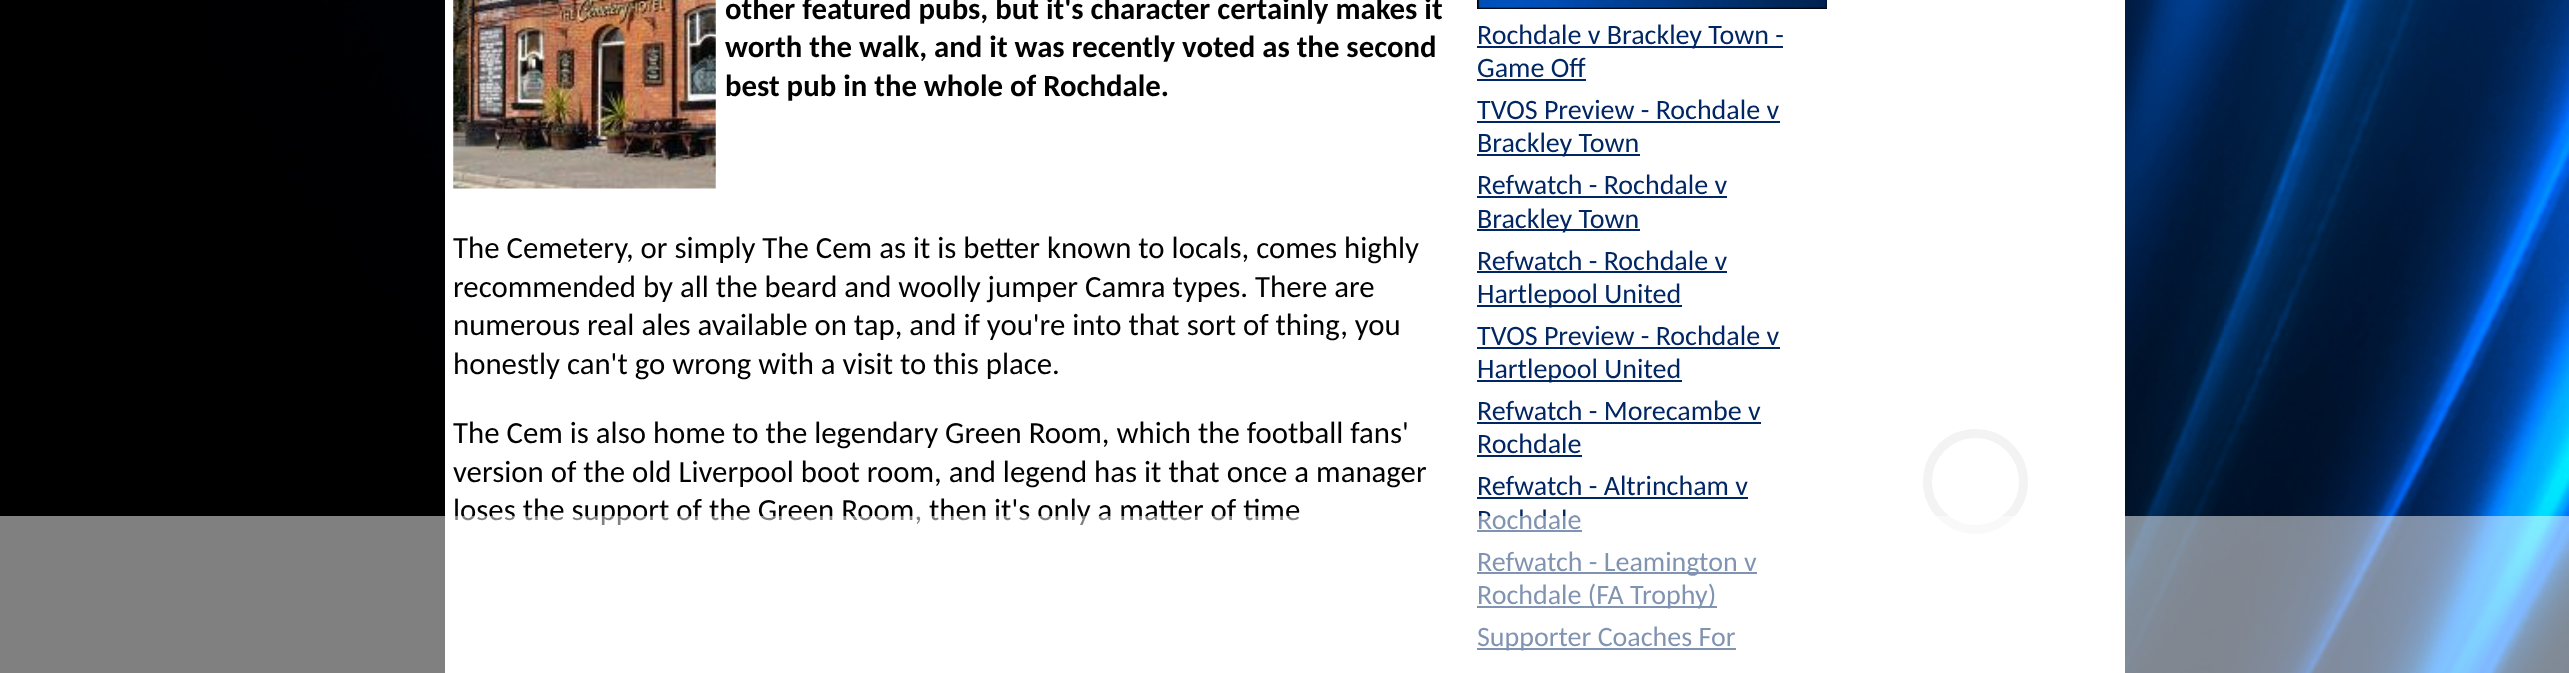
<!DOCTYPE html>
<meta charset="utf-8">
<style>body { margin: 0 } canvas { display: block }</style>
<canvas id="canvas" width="2569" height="673"></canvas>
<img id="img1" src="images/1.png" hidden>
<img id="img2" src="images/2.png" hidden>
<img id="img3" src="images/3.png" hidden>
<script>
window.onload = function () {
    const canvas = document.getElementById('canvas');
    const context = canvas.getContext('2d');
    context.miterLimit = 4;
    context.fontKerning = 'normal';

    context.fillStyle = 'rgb(255, 255, 255)';
    context.fillRect(0, 0, 2569, 673);
    context.drawImage(document.getElementById('img1'), 0, 0, 2569, 673);
    context.fillRect(445, 0, 1680, 673);
    context.drawImage(document.getElementById('img2'), 453, 0, 263, 189);
    context.fillStyle = 'rgb(0, 0, 0)';
    context.fillRect(1477, 0, 350, 9);
    context.drawImage(document.getElementById('img3'), 1478, 0, 349, 9);
    context.strokeStyle = 'rgba(0, 0, 0, 0.3)';
    context.lineWidth = 2;
    context.strokeRect(1478, -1, 348, 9);
    context.fillStyle = 'rgb(0, 38, 99)';
    context.fillRect(1477, 46, 306, 2);
    context.fillRect(1477, 79, 109, 2);
    context.fillRect(1477, 121, 303, 2);
    context.fillRect(1477, 154, 163, 2);
    context.fillRect(1477, 196, 250, 2);
    context.fillRect(1477, 229, 163, 2);
    context.fillRect(1477, 271, 250, 2);
    context.fillRect(1477, 305, 205, 2);
    context.fillRect(1477, 347, 303, 2);
    context.fillRect(1477, 380, 205, 2);
    context.fillRect(1477, 422, 284, 2);
    context.fillRect(1477, 455, 105, 2);
    context.fillRect(1477, 497, 271, 2);
    context.fillRect(1477, 530, 105, 2);
    context.fillRect(1477, 572, 280, 2);
    context.fillRect(1477, 606, 240, 2);
    context.fillRect(1477, 648, 259, 2);
    context.beginPath();
    context.arc(1975.5, 481.5, 48, 0, 2 * Math.PI);
    context.strokeStyle = 'rgb(243, 243, 243)';
    context.lineWidth = 9;
    context.stroke();
    context.font = 'bold 30.8px Carlito';
    context.fillStyle = 'rgb(0, 0, 0)';
    context.fillText('other featured pubs, but it\'s character certainly makes it', 725, 19);
    context.fillText('worth the walk, and it was recently voted as the second', 725, 57);
    context.fillText('best pub in the whole of Rochdale.', 725, 96);
    context.font = '30.8px Carlito';
    context.fillText('The Cemetery, or simply The Cem as it is better known to locals, comes highly', 453, 258);
    context.fillText('recommended by all the beard and woolly jumper Camra types. There are', 453, 297);
    context.fillText('numerous real ales available on tap, and if you\'re into that sort of thing, you', 453, 335);
    context.fillText('honestly can\'t go wrong with a visit to this place.', 453, 374);
    context.fillText('The Cem is also home to the legendary Green Room, which the football fans\'', 453, 443);
    context.fillText('version of the old Liverpool boot room, and legend has it that once a manager', 453, 482);
    context.fillText('loses the support of the Green Room, then it\'s only a matter of time', 453, 520);
    context.font = '28px Carlito';
    context.fillStyle = 'rgb(0, 38, 99)';
    context.fillText('Rochdale v Brackley Town -', 1477, 44);
    context.fillText('Game Off', 1477, 77);
    context.fillText('TVOS Preview - Rochdale v', 1477, 119);
    context.fillText('Brackley Town', 1477, 152);
    context.fillText('Refwatch - Rochdale v', 1477, 194);
    context.fillText('Brackley Town', 1477, 228);
    context.fillText('Refwatch - Rochdale v', 1477, 270);
    context.fillText('Hartlepool United', 1477, 303);
    context.fillText('TVOS Preview - Rochdale v', 1477, 345);
    context.fillText('Hartlepool United', 1477, 378);
    context.fillText('Refwatch - Morecambe v', 1477, 420);
    context.fillText('Rochdale', 1477, 453);
    context.fillText('Refwatch - Altrincham v', 1477, 495);
    context.fillText('Rochdale', 1477, 529);
    context.fillText('Refwatch - Leamington v', 1477, 571);
    context.fillText('Rochdale (FA Trophy)', 1477, 604);
    context.fillText('Supporter Coaches For', 1477, 646);
    context.fillStyle = 'rgba(255, 255, 255, 0.5)';
    context.fillRect(0, 516, 2569, 157);
};
</script>
